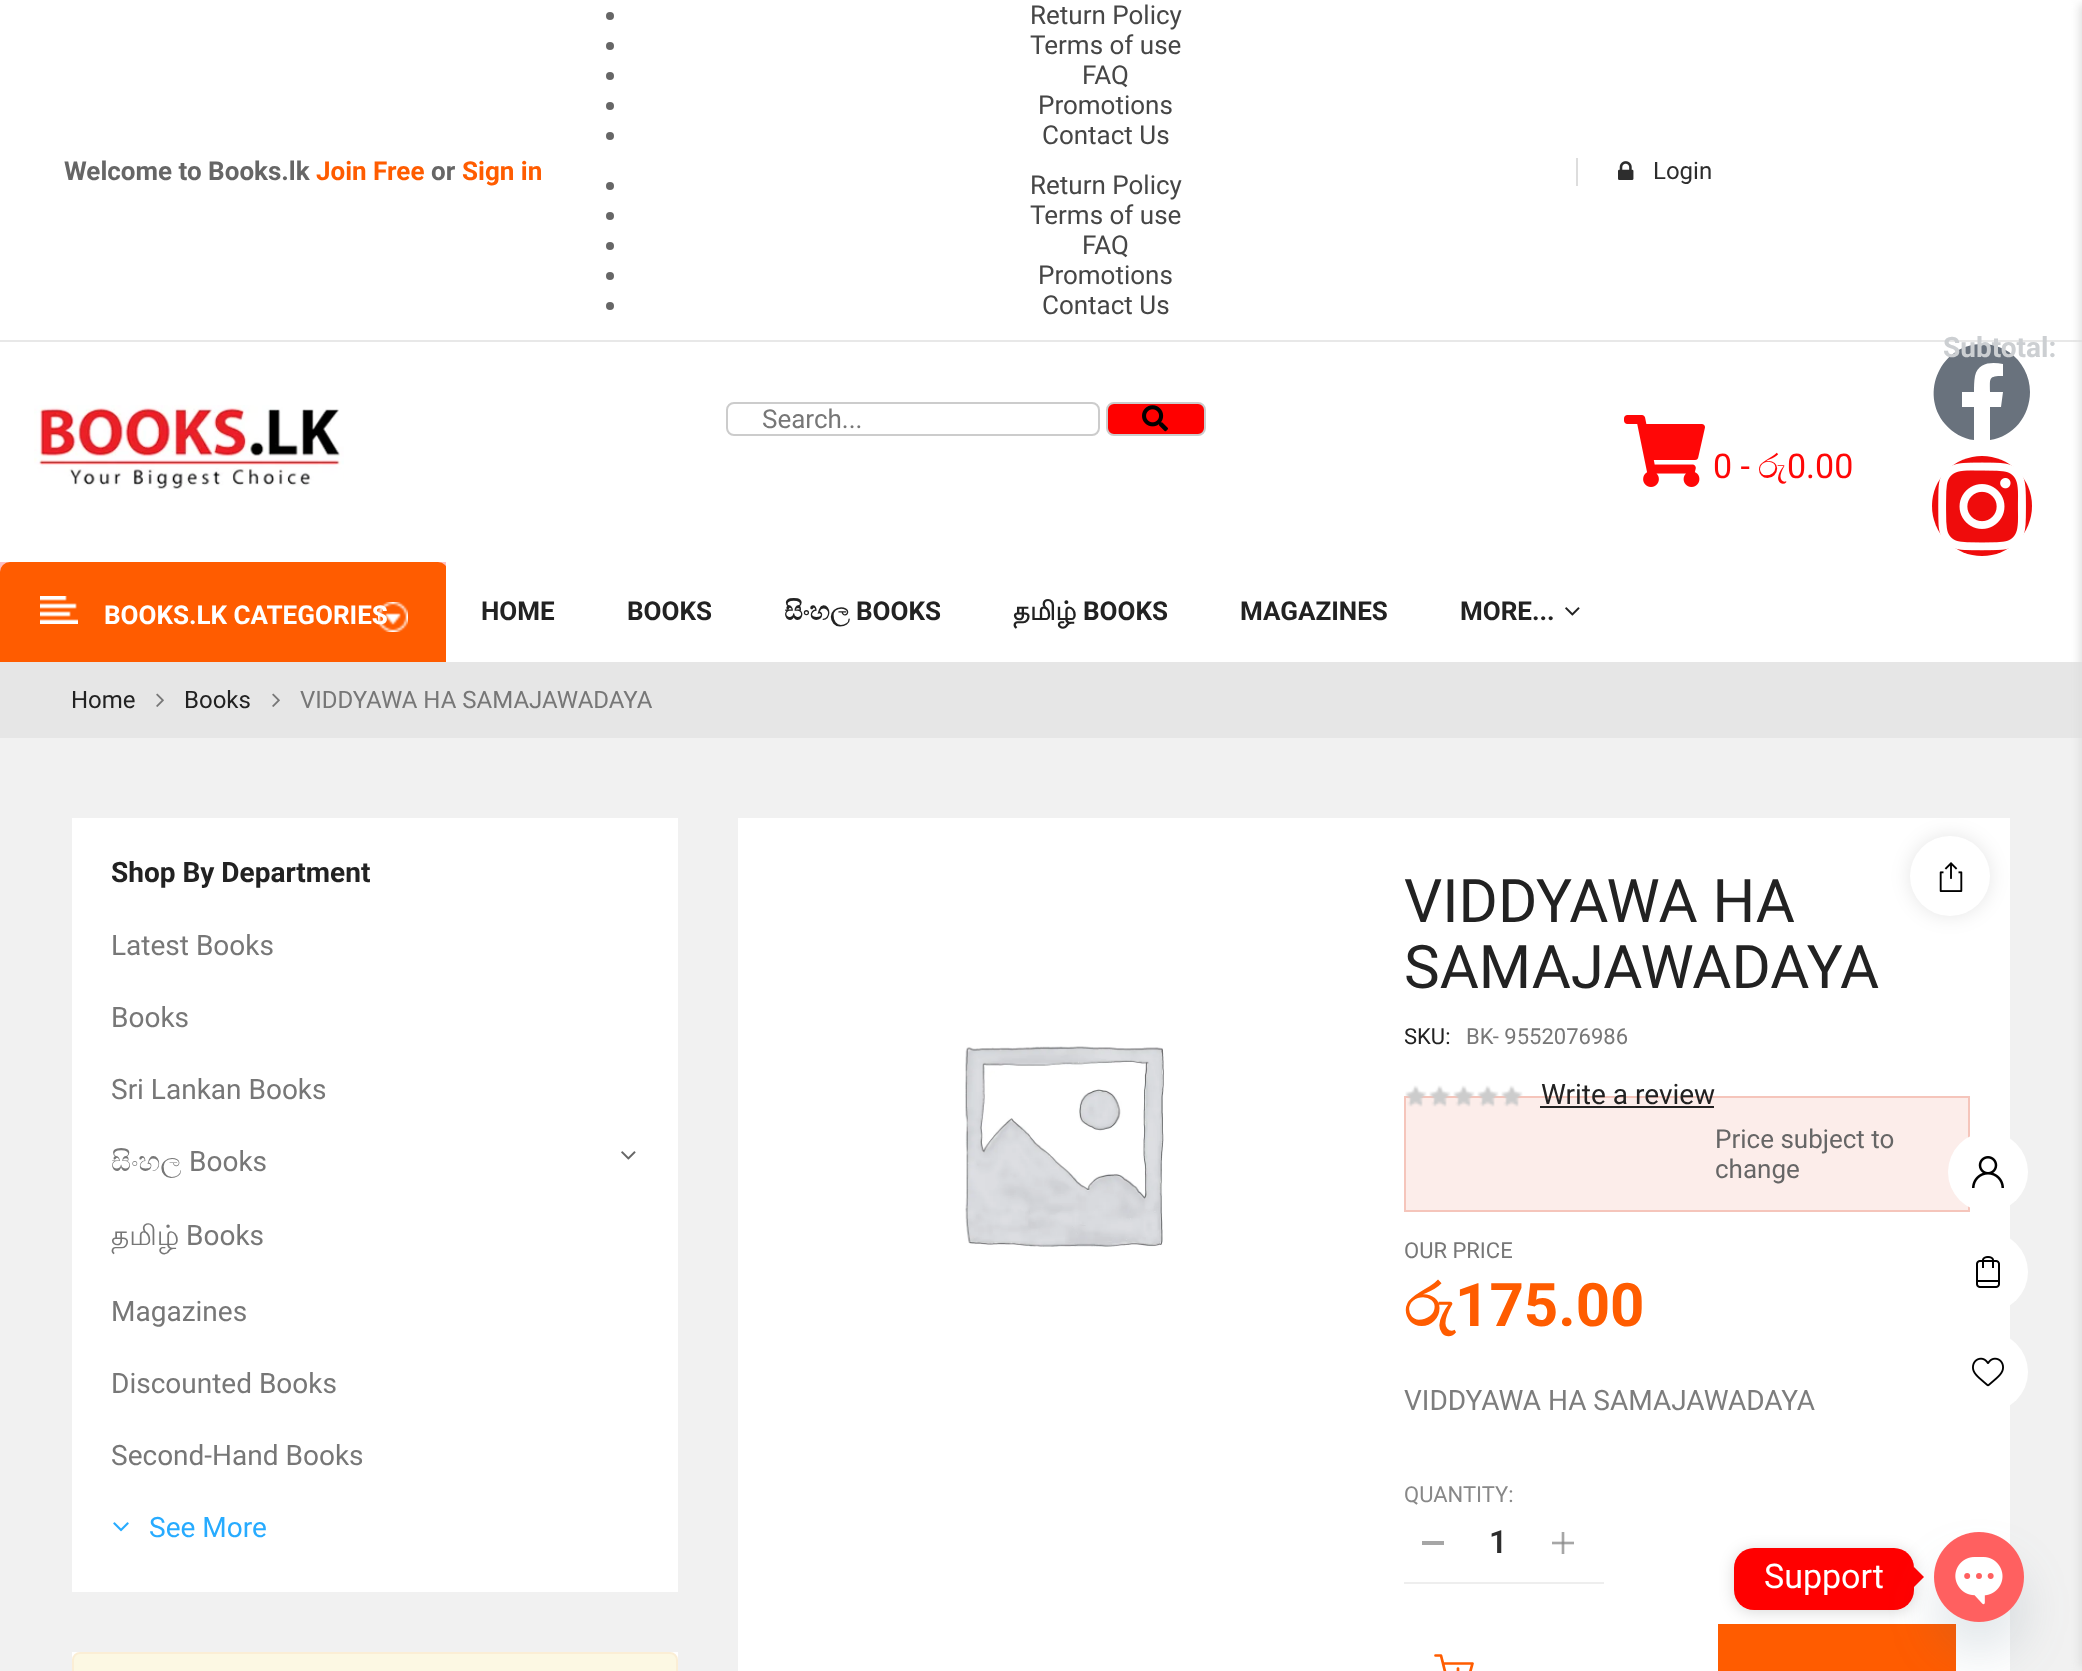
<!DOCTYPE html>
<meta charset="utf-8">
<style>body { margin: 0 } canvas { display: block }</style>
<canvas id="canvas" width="2082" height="1671"></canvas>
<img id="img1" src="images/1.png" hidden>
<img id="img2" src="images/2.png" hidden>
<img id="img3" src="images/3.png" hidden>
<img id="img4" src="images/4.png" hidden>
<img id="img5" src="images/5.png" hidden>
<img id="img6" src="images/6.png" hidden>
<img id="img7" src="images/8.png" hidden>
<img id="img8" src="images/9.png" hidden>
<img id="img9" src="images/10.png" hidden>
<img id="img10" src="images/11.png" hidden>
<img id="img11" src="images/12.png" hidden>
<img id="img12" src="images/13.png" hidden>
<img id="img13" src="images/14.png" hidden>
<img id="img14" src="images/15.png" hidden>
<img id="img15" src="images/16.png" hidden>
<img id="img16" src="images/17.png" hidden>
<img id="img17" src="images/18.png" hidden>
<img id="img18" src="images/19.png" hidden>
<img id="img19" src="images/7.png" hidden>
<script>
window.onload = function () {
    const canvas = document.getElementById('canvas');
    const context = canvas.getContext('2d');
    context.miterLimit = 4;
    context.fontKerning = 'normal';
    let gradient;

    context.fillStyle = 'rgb(241, 241, 241)';
    context.fillRect(0, 0, 2082, 1671);
    context.fillStyle = 'rgb(255, 255, 255)';
    context.fillRect(0, 0, 2082, 340);
    context.fillStyle = 'rgb(232, 232, 232)';
    context.fillRect(0, 340, 2082, 2);
    context.fillStyle = 'rgb(102, 102, 102)';
    context.beginPath();
    context.arc(610, 16, 4, 0, 2 * Math.PI);
    context.fill();
    context.beginPath();
    context.arc(610, 46, 4, 0, 2 * Math.PI);
    context.fill();
    context.beginPath();
    context.arc(610, 76, 4, 0, 2 * Math.PI);
    context.fill();
    context.beginPath();
    context.arc(610, 106, 4, 0, 2 * Math.PI);
    context.fill();
    context.beginPath();
    context.arc(610, 136, 4, 0, 2 * Math.PI);
    context.fill();
    context.beginPath();
    context.arc(610, 186, 4, 0, 2 * Math.PI);
    context.fill();
    context.beginPath();
    context.arc(610, 216, 4, 0, 2 * Math.PI);
    context.fill();
    context.beginPath();
    context.arc(610, 246, 4, 0, 2 * Math.PI);
    context.fill();
    context.beginPath();
    context.arc(610, 276, 4, 0, 2 * Math.PI);
    context.fill();
    context.beginPath();
    context.arc(610, 306, 4, 0, 2 * Math.PI);
    context.fill();
    context.fillStyle = 'rgb(221, 221, 221)';
    context.fillRect(1576, 158, 2, 28);
    context.drawImage(document.getElementById('img1'), 1618, 161, 16, 19);
    context.fillStyle = 'rgb(255, 255, 255)';
    context.fillRect(0, 342, 2082, 220);
    context.drawImage(document.getElementById('img2'), 34, 405, 310, 84);
    context.beginPath();
    context.roundRect(727, 403, 372, 32, 7);
    context.strokeStyle = 'rgb(204, 204, 204)';
    context.lineWidth = 2;
    context.stroke();
    context.fillStyle = 'rgb(255, 0, 0)';
    context.beginPath();
    context.roundRect(1107, 403, 98, 32, 7);
    context.fill();
    context.stroke();
    context.drawImage(document.getElementById('img3'), 1142, 405, 26, 27);
    context.fillStyle = 'rgb(105, 114, 125)';
    context.beginPath();
    context.moveTo(2030, 392);
    context.bezierCurveTo(2030, 416, 2013, 437, 1990, 440);
    context.lineTo(1990, 407);
    context.lineTo(2001, 407);
    context.lineTo(2003, 392);
    context.lineTo(1990, 392);
    context.bezierCurveTo(1990, 378, 1988, 376, 2003, 376);
    context.lineTo(2003, 364);
    context.bezierCurveTo(1992, 362, 1978, 362, 1975, 376);
    context.bezierCurveTo(1974, 381, 1974, 387, 1974, 392);
    context.lineTo(1962, 392);
    context.lineTo(1962, 407);
    context.lineTo(1974, 407);
    context.lineTo(1974, 440);
    context.bezierCurveTo(1963, 439, 1953, 433, 1945, 424);
    context.bezierCurveTo(1919, 393, 1941, 344, 1982, 344);
    context.bezierCurveTo(1992, 344, 2001, 347, 2009, 352);
    context.bezierCurveTo(2022, 361, 2030, 376, 2030, 392);
    context.closePath();
    context.fill();
    context.fillStyle = 'rgb(239, 12, 12)';
    context.beginPath();
    context.arc(1982, 506, 50, 0, 2 * Math.PI);
    context.fill();
    context.drawImage(document.getElementById('img4'), 1938, 462, 88, 89);
    context.drawImage(document.getElementById('img5'), 1624, 415, 81, 72);
    context.fillStyle = 'rgb(255, 255, 255)';
    context.fillRect(1604, 562, 478, 100);
    gradient = context.createLinearGradient(224, 562, 224, 662);
    gradient.addColorStop(0, 'rgb(255, 193, 193)');
    gradient.addColorStop(1, 'rgb(242, 41, 91)');
    context.fillStyle = gradient;
    context.fillRect(0, 562, 446, 10);
    context.fillStyle = 'rgb(255, 92, 0)';
    context.beginPath();
    context.roundRect(0, 562, 448, 100, [10, 10, 0, 0]);
    context.fill();
    context.drawImage(document.getElementById('img6'), 40, 596, 38, 28);
    context.fillStyle = 'rgb(255, 255, 255)';
    context.fillRect(446, 562, 1158, 100);
    context.drawImage(document.getElementById('img7'), 1565, 607, 15, 9);
    context.fillStyle = 'rgb(230, 230, 230)';
    context.fillRect(0, 662, 2082, 76);
    context.fillStyle = 'rgb(221, 221, 221)';
    context.filter = 'blur(5px)';
    context.beginPath();
    context.rect(2080, 4, 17, 1664);
    context.fill();
    context.filter = 'none';
    context.fillStyle = 'rgb(255, 255, 255)';
    context.fillRect(738, 818, 1272, 853);
    context.fillStyle = 'rgb(252, 237, 234)';
    context.beginPath();
    context.rect(1405, 1097, 564, 114);
    context.fill();
    context.strokeStyle = 'rgb(245, 197, 187)';
    context.stroke();
    context.fillStyle = 'rgb(255, 255, 255)';
    context.beginPath();
    context.arc(1988, 1172, 40, 0, 2 * Math.PI);
    context.fill();
    context.drawImage(document.getElementById('img8'), 1972, 1156, 32, 32);
    context.beginPath();
    context.arc(1988, 1272, 40, 0, 2 * Math.PI);
    context.fill();
    context.drawImage(document.getElementById('img9'), 1976, 1256, 24, 32);
    context.beginPath();
    context.arc(1988, 1372, 40, 0, 2 * Math.PI);
    context.fill();
    context.drawImage(document.getElementById('img10'), 1972, 1357, 32, 30);
    context.drawImage(document.getElementById('img11'), 156, 693, 8, 14);
    context.drawImage(document.getElementById('img11'), 272, 693, 8, 14);
    context.fillRect(72, 818, 606, 774);
    context.drawImage(document.getElementById('img12'), 621, 1151, 15, 9);
    context.drawImage(document.getElementById('img13'), 113, 1522, 16, 10);
    context.fillRect(72, 1652, 606, 8);
    context.fillStyle = 'rgb(252, 248, 227)';
    context.beginPath();
    context.roundRect(73, 1653, 604, 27, 7);
    context.fill();
    context.strokeStyle = 'rgb(251, 238, 213)';
    context.stroke();
    context.drawImage(document.getElementById('img14'), 965, 1046, 199, 201);
    context.fillStyle = 'rgba(0, 0, 0, 0.1)';
    context.filter = 'blur(10px)';
    context.beginPath();
    context.roundRect(1910, 836, 80, 80, 40);
    context.fill();
    context.filter = 'none';
    context.fillStyle = 'rgb(255, 255, 255)';
    context.beginPath();
    context.arc(1950, 876, 40, 0, 2 * Math.PI);
    context.fill();
    context.drawImage(document.getElementById('img15'), 1939, 862, 24, 30);
    context.drawImage(document.getElementById('img16'), 1405, 1085, 118, 22);
    context.fillStyle = 'rgb(34, 34, 34)';
    context.fillRect(1540, 1106, 174, 2);
    context.fillStyle = 'rgb(238, 238, 238)';
    context.fillRect(1404, 1582, 200, 2);
    context.fillStyle = 'rgb(166, 166, 166)';
    context.fillRect(1422, 1541, 22, 4);
    context.drawImage(document.getElementById('img17'), 1552, 1532, 22, 22);
    context.beginPath();
    context.moveTo(1435.5, 1655.5);
    context.lineTo(1441, 1655.5);
    context.lineTo(1448, 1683.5);
    context.lineTo(1467, 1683.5);
    context.lineTo(1472.5, 1663.5);
    context.lineTo(1444, 1663.5);
    context.strokeStyle = 'rgb(255, 92, 0)';
    context.lineWidth = 2.7;
    context.lineCap = 'round';
    context.lineJoin = 'round';
    context.stroke();
    context.beginPath();
    context.moveTo(1458, 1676.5);
    context.lineTo(1458, 1668.5);
    context.lineJoin = 'miter';
    context.stroke();
    context.fillStyle = 'rgb(255, 92, 0)';
    context.fillRect(1718, 1624, 238, 47);
    context.fillStyle = 'rgba(0, 0, 0, 0.15)';
    context.filter = 'blur(7.5px)';
    context.beginPath();
    context.roundRect(1734, 1550, 180, 62, 20);
    context.fill();
    context.filter = 'none';
    context.fillStyle = 'rgb(255, 0, 0)';
    context.beginPath();
    context.roundRect(1734, 1548, 180, 62, 20);
    context.fill();
    context.beginPath();
    context.moveTo(1914, 1587);
    context.lineTo(1914, 1567);
    context.lineTo(1924, 1577);
    context.closePath();
    context.fill();
    context.fillStyle = 'rgba(73, 104, 126, 0.16)';
    context.filter = 'blur(24px)';
    context.beginPath();
    context.roundRect(1934, 1564, 90, 90, 45);
    context.fill();
    context.filter = 'none';
    context.drawImage(document.getElementById('img18'), 1934, 1532, 90, 90);
    context.font = 'bold 26px Roboto';
    context.fillStyle = 'rgb(102, 102, 102)';
    context.fillText('Welcome to Books.lk', 64, 180);
    context.fillStyle = 'rgb(255, 92, 0)';
    context.fillText('Join Free', 316, 180);
    context.fillStyle = 'rgb(102, 102, 102)';
    context.fillText('or', 431, 180);
    context.fillStyle = 'rgb(255, 92, 0)';
    context.fillText('Sign in', 462, 180);
    context.font = '26px Roboto';
    context.fillStyle = 'rgb(70, 70, 70)';
    context.fillText('Return Policy', 1030, 24);
    context.fillText('Terms of use', 1030, 54);
    context.fillText('FAQ', 1082, 84);
    context.fillText('Promotions', 1038, 114);
    context.fillText('Contact Us', 1042, 144);
    context.fillText('Return Policy', 1030, 194);
    context.fillText('Terms of use', 1030, 224);
    context.fillText('FAQ', 1082, 254);
    context.fillText('Promotions', 1038, 284);
    context.fillText('Contact Us', 1042, 314);
    context.font = '24px Roboto';
    context.fillStyle = 'rgb(45, 45, 45)';
    context.fillText('Login', 1653, 179);
    context.font = '26px Roboto';
    context.fillStyle = 'rgb(119, 119, 119)';
    context.fillText('Search...', 762, 428);
    context.font = '34px Roboto';
    context.fillStyle = 'rgb(255, 7, 7)';
    context.fillText('0 -', 1713, 478);
    context.font = '34px FreeSerif';
    context.fillText('රු', 1758, 478);
    context.font = '34px Roboto';
    context.fillText('0.00', 1787, 478);
    context.font = 'bold 26px Roboto';
    context.fillStyle = 'rgb(255, 255, 255)';
    context.fillText('BOOKS.LK CATEGORIES', 104, 624);
    context.drawImage(document.getElementById('img19'), 378, 602, 30, 30);
    context.fillStyle = 'rgb(34, 34, 34)';
    context.fillText('HOME', 481, 620);
    context.fillText('BOOKS', 627, 620);
    context.font = 'bold 26px FreeSerif';
    context.fillText('සිංහල', 784, 620);
    context.font = 'bold 26px Roboto';
    context.fillText('BOOKS', 856, 620);
    context.font = 'bold 26px Lohit Tamil';
    context.fillText('தமிழ்', 1013, 620);
    context.font = 'bold 26px Roboto';
    context.fillText('BOOKS', 1083, 620);
    context.fillText('MAGAZINES', 1240, 620);
    context.fillText('MORE...', 1460, 620);
    context.font = 'bold 28px Roboto';
    context.fillStyle = 'rgb(204, 207, 210)';
    context.fillText('Subtotal:', 1943, 357);
    context.font = '24px Roboto';
    context.fillStyle = 'rgb(34, 34, 34)';
    context.fillText('Home', 71, 708);
    context.fillText('Books', 184, 708);
    context.fillStyle = 'rgb(119, 119, 119)';
    context.fillText('VIDDYAWA HA SAMAJAWADAYA', 300, 708);
    context.font = 'bold 28px Roboto';
    context.fillStyle = 'rgb(34, 34, 34)';
    context.fillText('Shop By Department', 111, 882);
    context.font = '28px Roboto';
    context.fillStyle = 'rgb(119, 119, 119)';
    context.fillText('Latest Books', 111, 955);
    context.fillText('Books', 111, 1027);
    context.fillText('Sri Lankan Books', 111, 1099);
    context.font = '28px FreeSerif';
    context.fillText('සිංහල', 111, 1171);
    context.font = '28px Roboto';
    context.fillText('Books', 189, 1171);
    context.font = '28px Lohit Tamil';
    context.fillText('தமிழ்', 111, 1245);
    context.font = '28px Roboto';
    context.fillText('Books', 186, 1245);
    context.fillText('Magazines', 111, 1321);
    context.fillText('Discounted Books', 111, 1393);
    context.fillText('Second-Hand Books', 111, 1465);
    context.fillStyle = 'rgb(39, 171, 255)';
    context.fillText('See More', 149, 1537);
    context.font = '60px Roboto';
    context.fillStyle = 'rgb(34, 34, 34)';
    context.fillText('VIDDYAWA HA', 1404, 922);
    context.fillText('SAMAJAWADAYA', 1404, 988);
    context.font = '22px Roboto';
    context.fillText('SKU:', 1404, 1044);
    context.fillStyle = 'rgb(119, 119, 119)';
    context.fillText('BK- 9552076986', 1466, 1044);
    context.font = '28px Roboto';
    context.fillStyle = 'rgb(34, 34, 34)';
    context.fillText('Write a review', 1541, 1104);
    context.font = '26px Roboto';
    context.fillStyle = 'rgb(102, 102, 102)';
    context.fillText('Price subject to', 1715, 1148);
    context.fillText('change', 1715, 1178);
    context.font = '22px Roboto';
    context.fillStyle = 'rgb(119, 119, 119)';
    context.fillText('OUR PRICE', 1404, 1258);
    context.font = 'bold 60px FreeSerif';
    context.fillStyle = 'rgb(255, 92, 0)';
    context.fillText('රු', 1404, 1326);
    context.font = 'bold 60px Roboto';
    context.fillText('175.00', 1455, 1326);
    context.font = '28px Roboto';
    context.fillStyle = 'rgb(125, 125, 125)';
    context.fillText('VIDDYAWA HA SAMAJAWADAYA', 1404, 1410);
    context.font = '22px Roboto';
    context.fillStyle = 'rgb(136, 136, 136)';
    context.fillText('QUANTITY:', 1404, 1502);
    context.font = '600 32px Roboto';
    context.fillStyle = 'rgb(45, 45, 45)';
    context.fillText('1', 1489, 1553);
    context.font = '34px Roboto';
    context.fillStyle = 'rgb(255, 255, 255)';
    context.fillText('Support', 1764, 1588);
};
</script>
